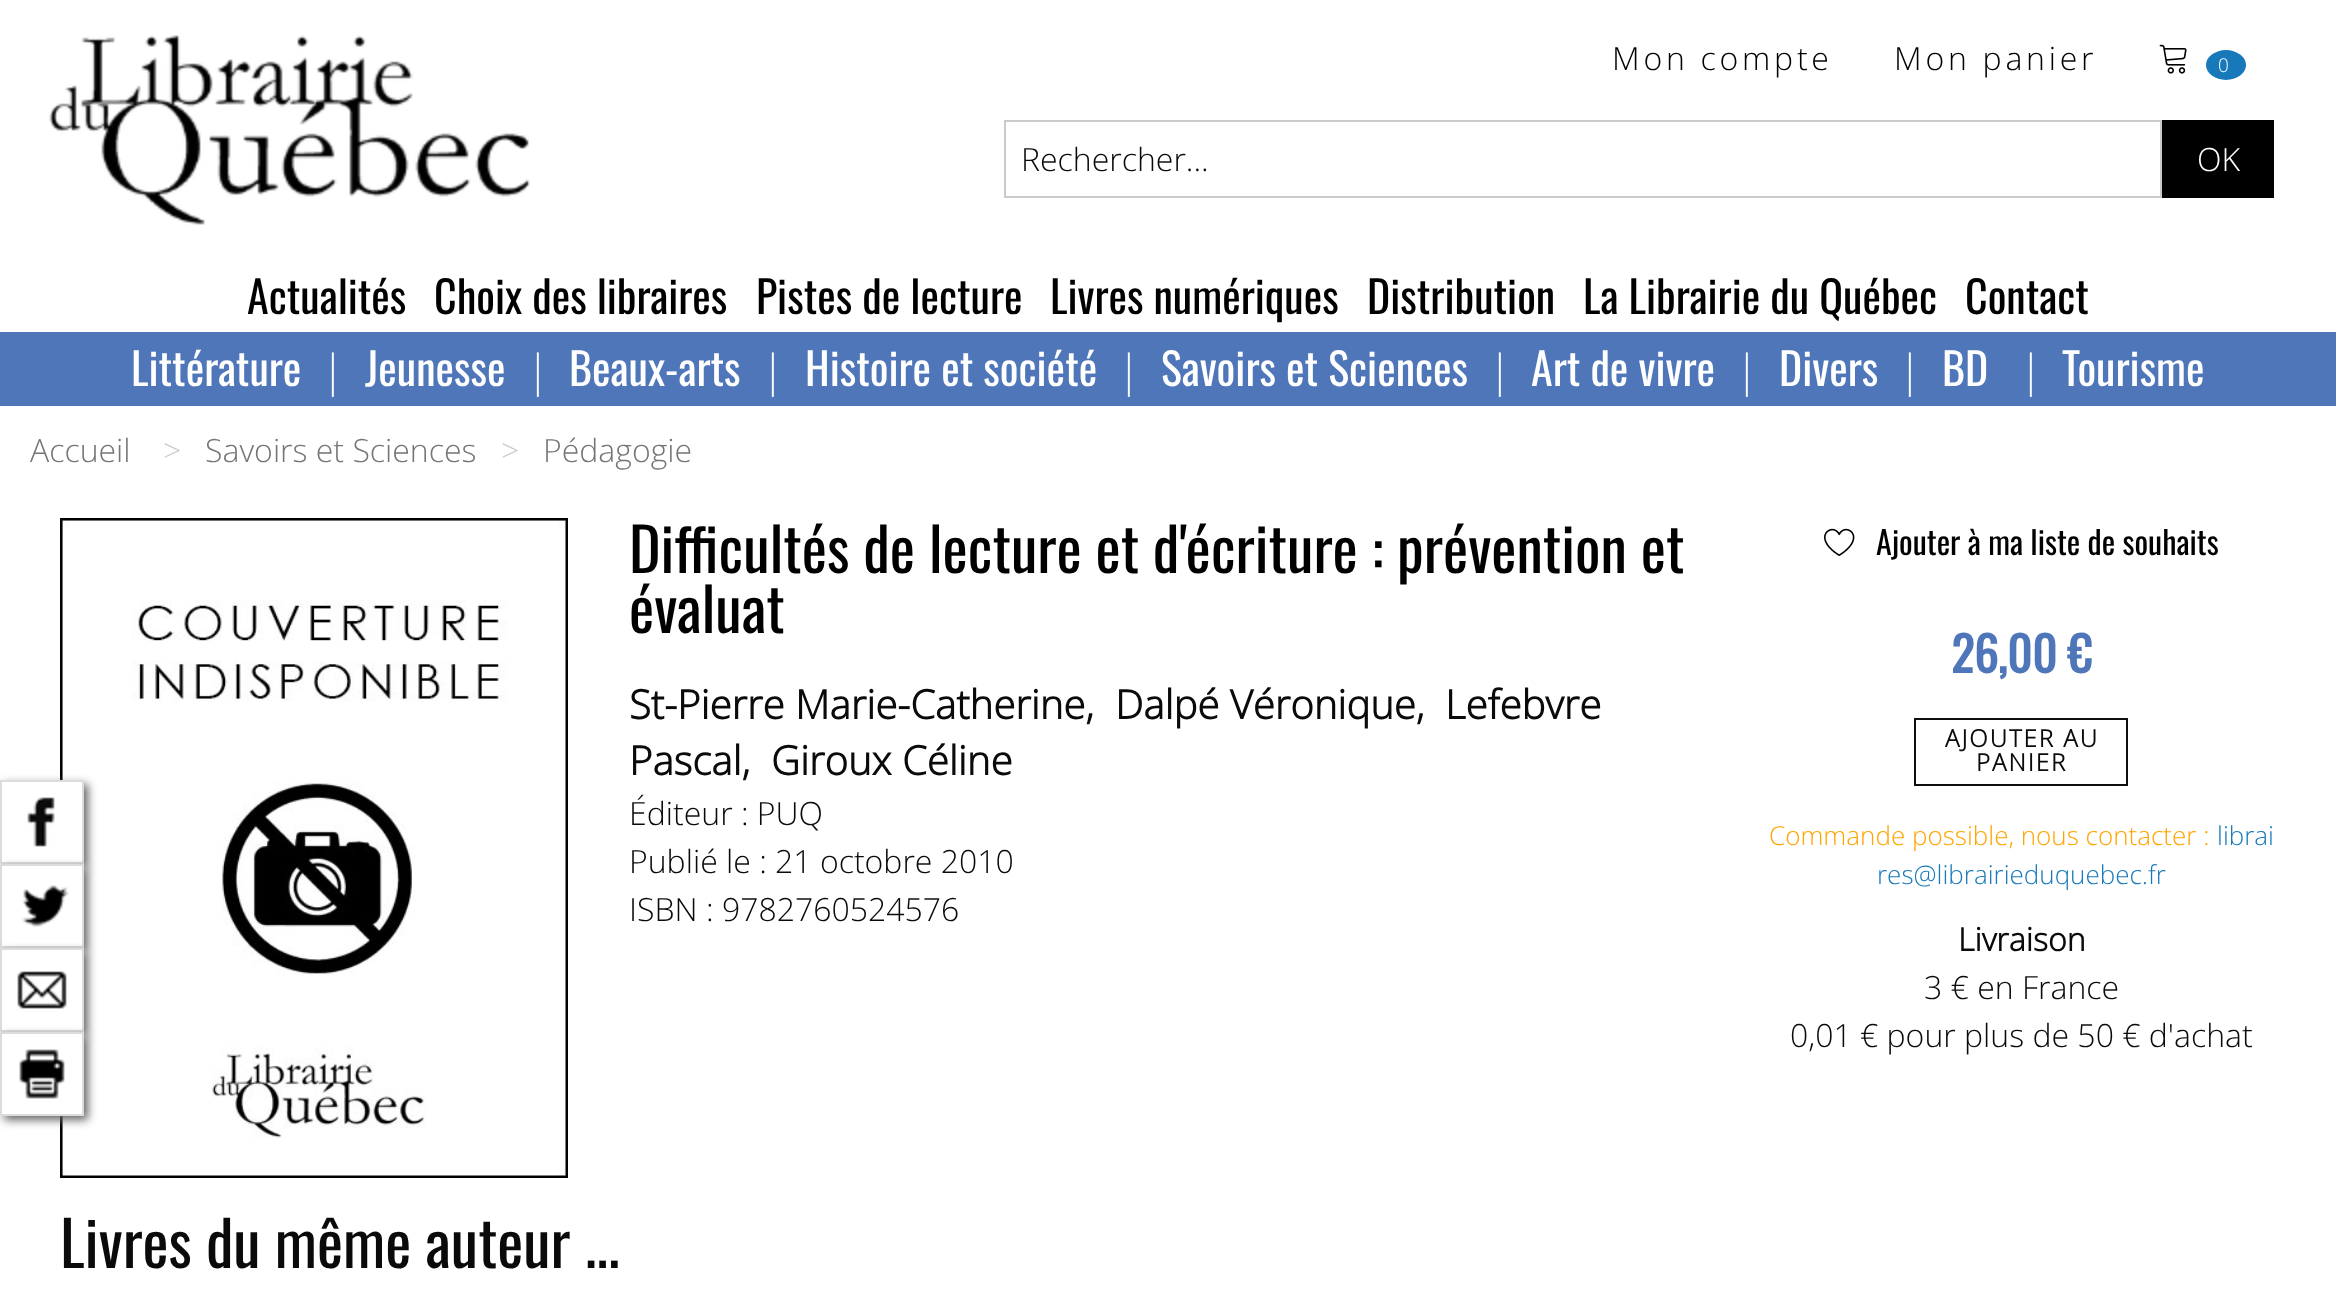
<!DOCTYPE html>
<meta charset="utf-8">
<style>body { margin: 0 } canvas { display: block }</style>
<canvas id="canvas" width="2336" height="1296"></canvas>
<img id="img1" src="images/1.png" hidden>
<img id="img2" src="images/2.png" hidden>
<img id="img3" src="images/7.png" hidden>
<img id="img4" src="images/3.png" hidden>
<img id="img5" src="images/4.png" hidden>
<img id="img6" src="images/5.png" hidden>
<img id="img7" src="images/6.png" hidden>
<img id="img8" src="images/8.png" hidden>
<script>
window.onload = function () {
    const canvas = document.getElementById('canvas');
    const context = canvas.getContext('2d');
    context.miterLimit = 4;
    context.fontKerning = 'normal';

    context.fillStyle = 'rgb(255, 255, 255)';
    context.fillRect(0, 0, 2336, 1296);
    context.drawImage(document.getElementById('img1'), 49, 35, 482, 190);
    context.drawImage(document.getElementById('img2'), 2159, 44, 28, 30);
    context.fillStyle = 'rgb(23, 121, 186)';
    context.beginPath();
    context.ellipse(2226, 65, 20, 15, 0, 0, 2 * Math.PI);
    context.fill();
    context.strokeStyle = 'rgb(202, 202, 202)';
    context.lineWidth = 2;
    context.strokeRect(1005, 121, 1156, 76);
    context.fillStyle = 'rgb(0, 0, 0)';
    context.fillRect(2162, 120, 112, 78);
    context.fillStyle = 'rgb(78, 118, 185)';
    context.fillRect(0, 332, 2336, 74);
    context.drawImage(document.getElementById('img3'), 60, 518, 508, 660);
    context.save();
    context.beginPath();
    context.moveTo(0, 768);
    context.lineTo(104, 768);
    context.lineTo(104, 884);
    context.lineTo(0, 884);
    context.closePath();
    context.moveTo(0, 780);
    context.lineTo(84, 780);
    context.lineTo(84, 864);
    context.lineTo(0, 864);
    context.closePath();
    context.clip('evenodd');
    context.fillStyle = 'rgb(101, 101, 101)';
    context.filter = 'blur(5px)';
    context.beginPath();
    context.rect(4, 784, 84, 84);
    context.fill();
    context.filter = 'none';
    context.restore();
    context.strokeStyle = 'rgb(220, 220, 220)';
    context.strokeRect(1, 781, 82, 82);
    context.drawImage(document.getElementById('img4'), 27, 782, 36, 80);
    context.fillStyle = 'rgb(101, 101, 101)';
    context.filter = 'blur(5px)';
    context.beginPath();
    context.rect(4, 868, 84, 84);
    context.fill();
    context.filter = 'none';
    context.strokeRect(1, 865, 82, 82);
    context.drawImage(document.getElementById('img5'), 2, 866, 80, 80);
    context.filter = 'blur(5px)';
    context.beginPath();
    context.rect(4, 952, 84, 84);
    context.fill();
    context.filter = 'none';
    context.strokeRect(1, 949, 82, 82);
    context.drawImage(document.getElementById('img6'), 2, 950, 80, 80);
    context.filter = 'blur(5px)';
    context.beginPath();
    context.rect(4, 1036, 84, 84);
    context.fill();
    context.filter = 'none';
    context.strokeRect(1, 1033, 82, 82);
    context.drawImage(document.getElementById('img7'), 2, 1034, 80, 80);
    context.drawImage(document.getElementById('img8'), 1824, 528, 31, 28);
    context.strokeStyle = 'rgb(14, 14, 14)';
    context.strokeRect(1915, 719, 212, 66);
    context.letterSpacing = '3.75px';
    context.font = '300 32px Open Sans';
    context.fillStyle = 'rgb(0, 0, 0)';
    context.fillText('Mon compte', 1612, 70);
    context.fillText('Mon panier', 1894, 70);
    context.font = '300 19px Open Sans';
    context.fillStyle = 'rgb(254, 254, 254)';
    context.fillText('0', 2218, 72);
    context.letterSpacing = '0px';
    context.font = '300 32px Open Sans';
    context.fillStyle = 'rgb(10, 10, 10)';
    context.fillText('Rechercher...', 1021, 171);
    context.fillStyle = 'rgb(254, 254, 254)';
    context.fillText('OK', 2197, 171);
    context.font = '44px Oswald';
    context.fillStyle = 'rgb(0, 0, 0)';
    context.fillText('Actualités', 247, 314);
    context.fillText('Choix des libraires', 434, 314);
    context.fillText('Pistes de lecture', 756, 314);
    context.fillText('Livres numériques', 1050, 314);
    context.fillText('Distribution', 1367, 314);
    context.fillText('La Librairie du Québec', 1583, 314);
    context.fillText('Contact', 1965, 314);
    context.fillStyle = 'rgb(254, 254, 254)';
    context.fillText('Littérature', 131, 386);
    context.font = '300 44px Open Sans';
    context.fillText('|', 321, 386);
    context.font = '44px Oswald';
    context.fillText('Jeunesse', 365, 386);
    context.font = '300 44px Open Sans';
    context.fillText('|', 526, 386);
    context.font = '44px Oswald';
    context.fillText('Beaux-arts', 569, 386);
    context.font = '300 44px Open Sans';
    context.fillText('|', 761, 386);
    context.font = '44px Oswald';
    context.fillText('Histoire et société', 805, 386);
    context.font = '300 44px Open Sans';
    context.fillText('|', 1117, 386);
    context.font = '44px Oswald';
    context.fillText('Savoirs et Sciences', 1161, 386);
    context.font = '300 44px Open Sans';
    context.fillText('|', 1488, 386);
    context.font = '44px Oswald';
    context.fillText('Art de vivre', 1531, 386);
    context.font = '300 44px Open Sans';
    context.fillText('|', 1735, 386);
    context.font = '44px Oswald';
    context.fillText('Divers', 1779, 386);
    context.font = '300 44px Open Sans';
    context.fillText('|', 1898, 386);
    context.font = '44px Oswald';
    context.fillText('BD', 1942, 386);
    context.font = '300 44px Open Sans';
    context.fillText('|', 2019, 386);
    context.font = '44px Oswald';
    context.fillText('Tourisme', 2062, 386);
    context.font = '300 32px Open Sans';
    context.fillStyle = 'rgb(117, 117, 117)';
    context.fillText('Accueil', 30, 462);
    context.fillStyle = 'rgb(202, 202, 202)';
    context.fillText('>', 163, 462);
    context.fillStyle = 'rgb(117, 117, 117)';
    context.fillText('Savoirs et Sciences', 205, 462);
    context.fillStyle = 'rgb(202, 202, 202)';
    context.fillText('>', 501, 462);
    context.fillStyle = 'rgb(117, 117, 117)';
    context.fillText('Pédagogie', 543, 462);
    context.font = '60px Oswald';
    context.fillStyle = 'rgb(0, 0, 0)';
    context.fillText('Difficultés de lecture et d\'écriture : prévention et', 629, 573);
    context.fillText('évaluat', 629, 633);
    context.font = 'bold 40px Open Sans';
    context.fillStyle = 'rgb(10, 10, 10)';
    context.fillText('St-Pierre Marie-Catherine,', 629, 719);
    context.fillText('Dalpé Véronique,', 1115, 719);
    context.fillText('Lefebvre', 1445, 719);
    context.fillText('Pascal,', 629, 775);
    context.fillText('Giroux Céline', 771, 775);
    context.font = '300 32px Open Sans';
    context.fillText('Éditeur : PUQ', 629, 825);
    context.fillText('Publié le : 21 octobre 2010', 629, 873);
    context.fillText('ISBN : 9782760524576', 629, 921);
    context.font = '32px Oswald';
    context.fillStyle = 'rgb(0, 0, 0)';
    context.fillText('Ajouter à ma liste de souhaits', 1876, 555);
    context.font = 'bold 48px Oswald';
    context.fillStyle = 'rgb(78, 118, 185)';
    context.fillText('26,00 €', 1951, 673);
    context.letterSpacing = '2px';
    context.font = 'bold 24px Open Sans';
    context.fillStyle = 'rgb(10, 10, 10)';
    context.fillText('AJOUTER AU', 1945, 747);
    context.fillText('PANIER', 1976, 771);
    context.letterSpacing = '0px';
    context.font = '300 26px Open Sans';
    context.fillStyle = 'rgb(255, 165, 0)';
    context.fillText('Commande possible, nous contacter :', 1769, 845);
    context.fillStyle = 'rgb(23, 121, 186)';
    context.fillText('librai', 2217, 845);
    context.fillText('res@librairieduquebec.fr', 1877, 884);
    context.font = 'bold 32px Open Sans';
    context.fillStyle = 'rgb(10, 10, 10)';
    context.fillText('Livraison', 1958, 951);
    context.font = '300 32px Open Sans';
    context.fillText('3 € en France', 1924, 999);
    context.fillText('0,01 € pour plus de 50 € d\'achat', 1790, 1047);
    context.font = '62px Oswald';
    context.fillText('Livres du même auteur ...', 60, 1268);
};
</script>
